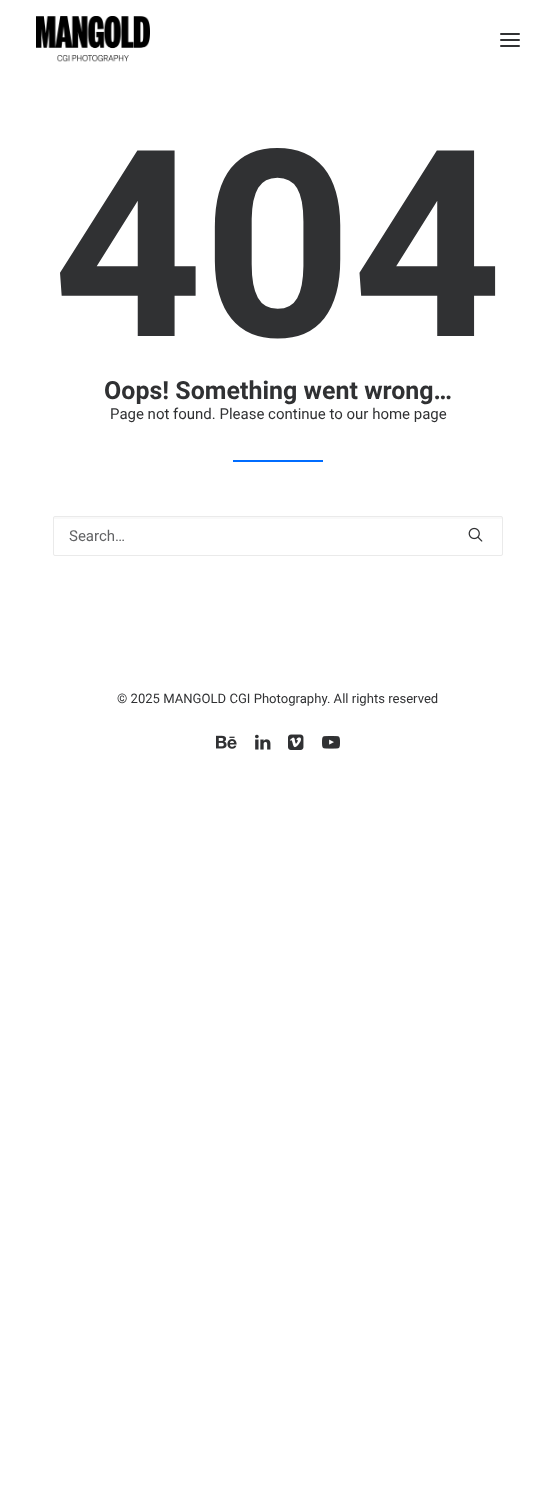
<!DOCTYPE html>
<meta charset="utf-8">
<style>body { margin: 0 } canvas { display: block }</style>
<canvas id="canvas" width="556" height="1487"></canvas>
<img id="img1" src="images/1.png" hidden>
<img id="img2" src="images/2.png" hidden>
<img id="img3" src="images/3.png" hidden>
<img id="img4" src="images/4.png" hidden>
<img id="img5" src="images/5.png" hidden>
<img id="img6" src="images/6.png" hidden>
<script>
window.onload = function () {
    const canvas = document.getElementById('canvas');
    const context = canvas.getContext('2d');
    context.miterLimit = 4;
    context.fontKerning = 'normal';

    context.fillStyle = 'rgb(255, 255, 255)';
    context.fillRect(0, 0, 556, 1487);
    context.drawImage(document.getElementById('img1'), 36, 16, 114, 46);
    context.fillStyle = 'rgb(48, 49, 51)';
    context.beginPath();
    context.roundRect(500, 39, 20, 2, 1);
    context.fill();
    context.beginPath();
    context.roundRect(500, 33, 20, 2, 1);
    context.fill();
    context.beginPath();
    context.roundRect(500, 45, 20, 2, 1);
    context.fill();
    context.fillStyle = 'rgb(0, 108, 255)';
    context.fillRect(233, 460, 90, 2);
    context.fillStyle = 'rgb(249, 249, 249)';
    context.beginPath();
    context.moveTo(55, 519);
    context.lineTo(501, 519);
    context.bezierCurveTo(502, 519, 502, 519, 502, 520);
    context.lineTo(502, 517);
    context.lineTo(501, 517);
    context.lineTo(55, 517);
    context.bezierCurveTo(54, 517, 54, 519, 54, 520);
    context.bezierCurveTo(54, 519, 54, 519, 55, 519);
    context.closePath();
    context.fill();
    context.beginPath();
    context.roundRect(53.5, 516.5, 449, 39, 1.5);
    context.strokeStyle = 'rgb(234, 234, 234)';
    context.stroke();
    context.drawImage(document.getElementById('img2'), 468, 527, 15, 15);
    context.drawImage(document.getElementById('img3'), 216, 735, 21, 14);
    context.drawImage(document.getElementById('img4'), 255, 734, 16, 16);
    context.drawImage(document.getElementById('img5'), 288, 734, 16, 16);
    context.drawImage(document.getElementById('img6'), 322, 736, 18, 13);
    context.font = 'bold 261px Roboto';
    context.fillStyle = 'rgb(48, 49, 51)';
    context.fillText('404', 53, 336);
    context.font = 'bold 25px Roboto';
    context.fillText('Oops! Something went wrong…', 104, 399);
    context.font = '15px Roboto';
    context.fillText('Page not found. Please continue to our home page', 110, 419);
    context.fillStyle = 'rgb(98, 99, 101)';
    context.fillText('Search…', 69, 541);
    context.font = '13.1px Roboto';
    context.fillStyle = 'rgb(48, 49, 51)';
    context.fillText('© 2025 MANGOLD CGI Photography. All rights reserved', 117, 703);
};
</script>
